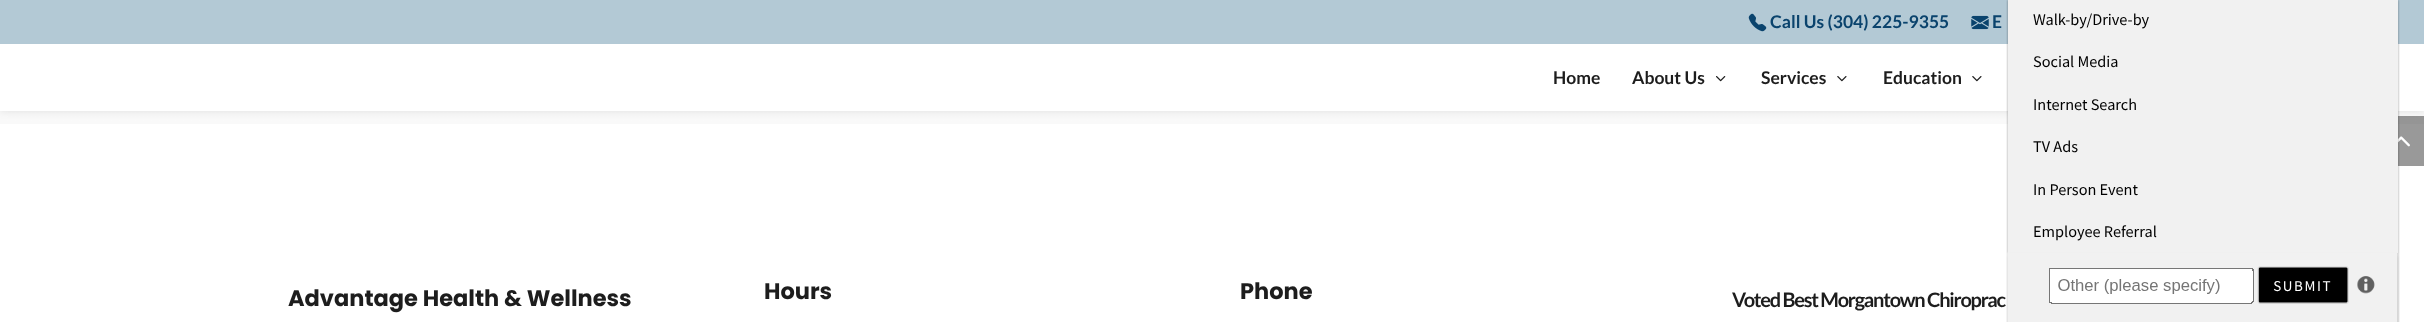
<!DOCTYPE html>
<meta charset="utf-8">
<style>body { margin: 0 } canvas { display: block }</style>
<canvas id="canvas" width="2424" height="322"></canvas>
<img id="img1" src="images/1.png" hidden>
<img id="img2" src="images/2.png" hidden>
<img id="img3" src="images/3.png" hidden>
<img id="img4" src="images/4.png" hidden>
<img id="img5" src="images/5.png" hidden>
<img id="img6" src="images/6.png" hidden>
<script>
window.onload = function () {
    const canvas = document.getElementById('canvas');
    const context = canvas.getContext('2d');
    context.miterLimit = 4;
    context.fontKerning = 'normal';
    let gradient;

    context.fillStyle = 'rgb(255, 255, 255)';
    context.fillRect(0, 0, 2424, 322);
    gradient = context.createLinearGradient(1213, -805, 1213, 124);
    gradient.addColorStop(0, 'rgb(255, 255, 255)');
    gradient.addColorStop(1, 'rgb(249, 249, 249)');
    context.fillStyle = gradient;
    context.fillRect(0, 111, 2424, 13);
    context.fillStyle = 'rgba(0, 0, 0, 0.1)';
    context.filter = 'blur(4.5px)';
    context.beginPath();
    context.rect(0, 44, 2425, 67);
    context.fill();
    context.filter = 'none';
    context.fillStyle = 'rgb(179, 201, 213)';
    context.fillRect(0, 0, 2424, 44);
    context.drawImage(document.getElementById('img1'), 1748, 13, 19, 19);
    context.drawImage(document.getElementById('img2'), 1971, 15, 18, 15);
    context.fillStyle = 'rgb(255, 255, 255)';
    context.fillRect(0, 44, 2424, 67);
    context.drawImage(document.getElementById('img3'), 1716, 76, 10, 6);
    context.drawImage(document.getElementById('img4'), 1837, 76, 10, 6);
    context.drawImage(document.getElementById('img4'), 1972, 76, 10, 6);
    context.fillStyle = 'rgba(0, 0, 0, 0.4)';
    context.fillRect(2398, 116, 26, 50);
    context.drawImage(document.getElementById('img5'), 2398, 136, 12, 11);
    context.drawImage(document.getElementById('img6'), 2006, 0, 394, 322);
    context.font = 'bold 17.5px Lato';
    context.fillStyle = 'rgb(10, 67, 109)';
    context.fillText('Call Us (304) 225-9355', 1770, 28);
    context.fillText('E', 1992, 28);
    context.fillStyle = 'rgb(29, 29, 29)';
    context.fillText('Home', 1553, 84);
    context.fillText('About Us', 1632, 84);
    context.fillText('Services', 1761, 84);
    context.fillText('Education', 1883, 84);
    context.font = 'bold 22.5px Poppins';
    context.fillText('Advantage Health & Wellness', 288, 306);
    context.fillText('Hours', 764, 299);
    context.fillText('Phone', 1240, 299);
    context.letterSpacing = '-1.25px';
    context.font = 'bold 20px Lato';
    context.fillText('Voted Best Morgantown Chiroprac', 1732, 307);
};
</script>
